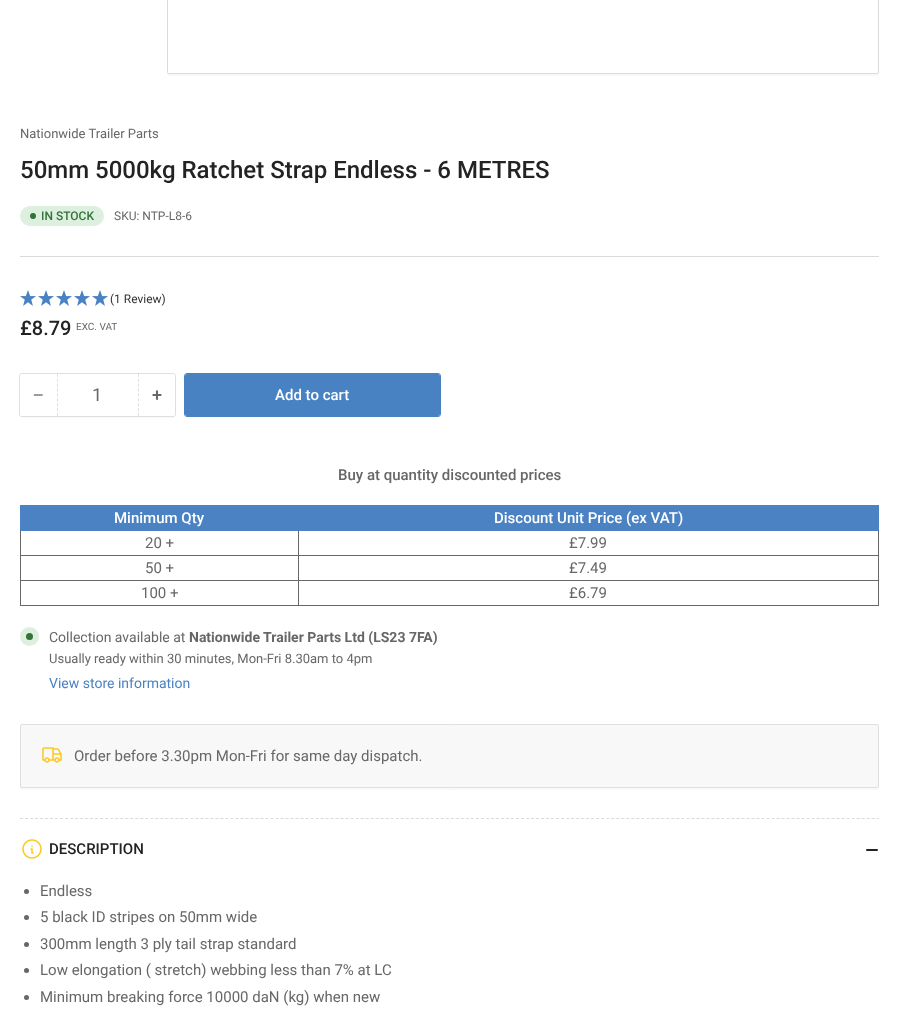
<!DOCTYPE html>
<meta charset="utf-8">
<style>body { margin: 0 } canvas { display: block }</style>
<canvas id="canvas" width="899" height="1021"></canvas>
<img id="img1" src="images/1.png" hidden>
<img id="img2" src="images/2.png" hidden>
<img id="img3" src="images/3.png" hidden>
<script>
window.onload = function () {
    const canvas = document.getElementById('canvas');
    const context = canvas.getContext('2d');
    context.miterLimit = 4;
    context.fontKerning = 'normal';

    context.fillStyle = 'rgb(255, 255, 255)';
    context.fillRect(0, 0, 899, 1021);
    context.fillStyle = 'rgb(248, 248, 248)';
    context.beginPath();
    context.moveTo(167, 72);
    context.bezierCurveTo(167, 73, 167, 75, 168, 76);
    context.lineTo(877, 76);
    context.lineTo(879, 75);
    context.lineTo(879, 72);
    context.bezierCurveTo(879, 73, 878, 74, 877, 74);
    context.lineTo(169, 74);
    context.bezierCurveTo(168, 74, 167, 73, 167, 72);
    context.closePath();
    context.fill();
    context.beginPath();
    context.roundRect(167.5, -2.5, 711, 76, 1.5);
    context.strokeStyle = 'rgb(218, 218, 218)';
    context.stroke();
    context.fillStyle = 'rgb(218, 218, 218)';
    context.fillRect(20, 256, 859, 1);
    context.fillStyle = 'rgb(221, 240, 223)';
    context.beginPath();
    context.roundRect(20, 206, 84, 20, 10);
    context.fill();
    context.fillStyle = 'rgb(51, 114, 57)';
    context.beginPath();
    context.arc(33, 216, 3, 0, 2 * Math.PI);
    context.fill();
    context.drawImage(document.getElementById('img1'), 20, 290, 16, 16);
    context.drawImage(document.getElementById('img1'), 38, 290, 16, 16);
    context.drawImage(document.getElementById('img1'), 56, 290, 16, 16);
    context.drawImage(document.getElementById('img1'), 74, 290, 16, 16);
    context.drawImage(document.getElementById('img1'), 92, 290, 16, 16);
    context.fillStyle = 'rgb(249, 249, 249)';
    context.beginPath();
    context.moveTo(20, 414);
    context.bezierCurveTo(20, 416, 20, 418, 22, 418);
    context.lineTo(174, 418);
    context.bezierCurveTo(175, 417, 175, 415, 175, 414);
    context.bezierCurveTo(175, 415, 174, 416, 173, 416);
    context.lineTo(22, 416);
    context.bezierCurveTo(21, 416, 20, 415, 20, 414);
    context.closePath();
    context.fill();
    context.beginPath();
    context.roundRect(19.5, 373.5, 156, 43, 2.5);
    context.strokeStyle = 'rgb(223, 223, 223)';
    context.stroke();
    context.fillStyle = 'rgb(255, 255, 255)';
    context.beginPath();
    context.roundRect(20, 374, 155, 42, 2);
    context.fill();
    context.beginPath();
    context.moveTo(138.5, 374);
    context.lineTo(138.5, 416);
    context.setLineDash([3, 1.88]);
    context.stroke();
    context.beginPath();
    context.moveTo(57.5, 374);
    context.lineTo(57.5, 416);
    context.stroke();
    context.beginPath();
    context.roundRect(184.5, 373.5, 256, 43, 2.5);
    context.strokeStyle = 'rgb(73, 130, 195)';
    context.setLineDash([]);
    context.stroke();
    context.fillStyle = 'rgb(73, 130, 195)';
    context.beginPath();
    context.roundRect(185, 374, 255, 42, 2);
    context.fill();
    context.fillStyle = 'rgb(75, 130, 195)';
    context.fillRect(21, 506, 857, 24);
    context.fillRect(20, 505, 859, 1);
    context.fillStyle = 'rgb(103, 103, 103)';
    context.fillRect(298, 555, 581, 1);
    context.fillRect(298, 580, 581, 1);
    context.fillRect(878, 580, 1, 26);
    context.fillRect(878, 530, 1, 51);
    context.fillStyle = 'rgb(75, 130, 195)';
    context.fillRect(878, 505, 1, 26);
    context.fillStyle = 'rgb(103, 103, 103)';
    context.fillRect(298, 605, 581, 1);
    context.fillRect(298, 580, 1, 26);
    context.fillRect(20, 580, 279, 1);
    context.fillRect(298, 555, 1, 26);
    context.fillRect(20, 555, 279, 1);
    context.fillRect(298, 530, 1, 26);
    context.fillRect(20, 605, 279, 1);
    context.fillRect(20, 580, 1, 26);
    context.fillRect(20, 530, 1, 51);
    context.fillStyle = 'rgb(75, 130, 195)';
    context.fillRect(20, 530, 859, 1);
    context.fillRect(20, 505, 1, 26);
    context.fillStyle = 'rgb(221, 240, 223)';
    context.beginPath();
    context.arc(29.5, 636.5, 9.5, 0, 2 * Math.PI);
    context.fill();
    context.fillStyle = 'rgb(51, 114, 57)';
    context.beginPath();
    context.arc(29.5, 636.5, 3.5, 0, 2 * Math.PI);
    context.fill();
    context.fillStyle = 'rgb(249, 249, 249)';
    context.beginPath();
    context.moveTo(20, 786);
    context.lineTo(20, 789);
    context.lineTo(22, 790);
    context.lineTo(877, 790);
    context.bezierCurveTo(879, 790, 879, 788, 879, 786);
    context.bezierCurveTo(879, 787, 878, 788, 877, 788);
    context.lineTo(22, 788);
    context.bezierCurveTo(21, 788, 20, 787, 20, 786);
    context.closePath();
    context.fill();
    context.fillStyle = 'rgb(248, 248, 248)';
    context.beginPath();
    context.roundRect(20.5, 724.5, 858, 63, 1.5);
    context.fill();
    context.strokeStyle = 'rgb(223, 223, 223)';
    context.stroke();
    context.drawImage(document.getElementById('img2'), 42, 747, 20, 16);
    context.beginPath();
    context.moveTo(20, 818.5);
    context.lineTo(879, 818.5);
    context.strokeStyle = 'rgb(218, 218, 218)';
    context.setLineDash([3, 2.01]);
    context.stroke();
    context.drawImage(document.getElementById('img3'), 22, 839, 20, 20);
    context.fillStyle = 'rgb(35, 35, 35)';
    context.beginPath();
    context.roundRect(866, 849, 7, 2, 1);
    context.fill();
    context.beginPath();
    context.roundRect(870, 849, 8, 2, 1);
    context.fill();
    context.fillStyle = 'rgb(103, 103, 103)';
    context.beginPath();
    context.arc(26.5, 891.5, 2.5, 0, 2 * Math.PI);
    context.fill();
    context.beginPath();
    context.arc(26.5, 917.5, 2.5, 0, 2 * Math.PI);
    context.fill();
    context.beginPath();
    context.arc(26.5, 944.5, 2.5, 0, 2 * Math.PI);
    context.fill();
    context.beginPath();
    context.arc(26.5, 970.5, 2.5, 0, 2 * Math.PI);
    context.fill();
    context.beginPath();
    context.arc(26.5, 997.5, 2.5, 0, 2 * Math.PI);
    context.fill();
    context.font = '13px Roboto';
    context.fillText('Nationwide Trailer Parts', 20, 138);
    context.font = '500 24px Roboto';
    context.fillStyle = 'rgb(35, 35, 35)';
    context.fillText('50mm 5000kg Ratchet Strap Endless - 6 METRES', 20, 178);
    context.font = '500 12px Roboto';
    context.fillStyle = 'rgb(51, 114, 57)';
    context.fillText('IN STOCK', 41, 220);
    context.font = '12px Roboto';
    context.fillStyle = 'rgb(103, 103, 103)';
    context.fillText('SKU: NTP-L8-6', 114, 220);
    context.fillStyle = 'rgb(51, 51, 51)';
    context.fillText('(1 Review)', 110, 303);
    context.font = '500 20px Roboto';
    context.fillStyle = 'rgb(35, 35, 35)';
    context.fillText('£8.79', 20, 335);
    context.font = '10px Roboto';
    context.fillStyle = 'rgb(103, 103, 103)';
    context.fillText('EXC. VAT', 76, 330);
    context.font = '18px Liberation Sans';
    context.fillText('−', 33, 401);
    context.font = '18px Roboto';
    context.fillText('1', 92, 401);
    context.font = '500 18px Roboto';
    context.fillText('+', 152, 401);
    context.font = '500 15px Roboto';
    context.fillStyle = 'rgb(255, 255, 255)';
    context.fillText('Add to cart', 275, 400);
    context.fillStyle = 'rgb(103, 103, 103)';
    context.fillText('Buy at quantity discounted prices', 338, 480);
    context.fillStyle = 'rgb(255, 255, 255)';
    context.fillText('Minimum Qty', 114, 523);
    context.fillText('Discount Unit Price (ex VAT)', 494, 523);
    context.font = '15px Roboto';
    context.fillStyle = 'rgb(103, 103, 103)';
    context.fillText('20 +', 145, 548);
    context.fillText('£7.99', 569, 548);
    context.fillText('50 +', 145, 573);
    context.fillText('£7.49', 569, 573);
    context.fillText('100 +', 141, 598);
    context.fillText('£6.79', 569, 598);
    context.font = '14px Roboto';
    context.fillText('Collection available at', 49, 642);
    context.font = 'bold 14px Roboto';
    context.fillText('Nationwide Trailer Parts Ltd (LS23 7FA)', 189, 642);
    context.font = '13px Roboto';
    context.fillText('Usually ready within 30 minutes, Mon-Fri 8.30am to 4pm', 49, 663);
    context.font = '14px Roboto';
    context.fillStyle = 'rgb(73, 130, 195)';
    context.fillText('View store information', 49, 688);
    context.font = '15px Roboto';
    context.fillStyle = 'rgb(103, 103, 103)';
    context.fillText('Order before 3.30pm Mon-Fri for same day dispatch.', 74, 761);
    context.font = '500 15px Roboto';
    context.fillStyle = 'rgb(35, 35, 35)';
    context.fillText('DESCRIPTION', 49, 854);
    context.font = '15px Roboto';
    context.fillStyle = 'rgb(103, 103, 103)';
    context.fillText('Endless', 40, 896);
    context.fillText('5 black ID stripes on 50mm wide', 40, 922);
    context.fillText('300mm length 3 ply tail strap standard', 40, 949);
    context.fillText('Low elongation ( stretch) webbing less than 7% at LC', 40, 975);
    context.fillText('Minimum breaking force 10000 daN (kg) when new', 40, 1002);
};
</script>
